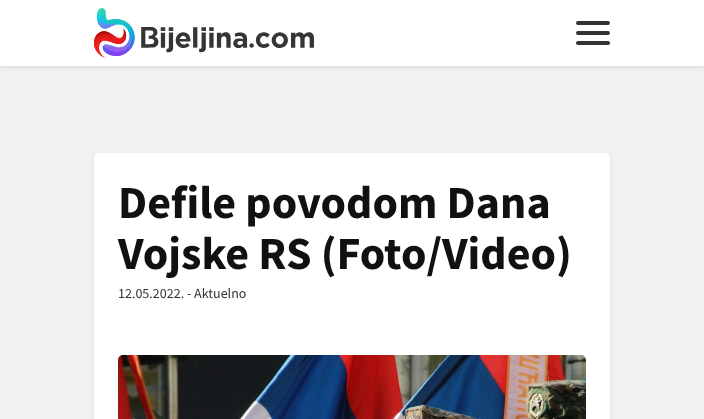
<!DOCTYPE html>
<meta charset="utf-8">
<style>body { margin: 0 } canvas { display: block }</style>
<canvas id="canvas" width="704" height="419"></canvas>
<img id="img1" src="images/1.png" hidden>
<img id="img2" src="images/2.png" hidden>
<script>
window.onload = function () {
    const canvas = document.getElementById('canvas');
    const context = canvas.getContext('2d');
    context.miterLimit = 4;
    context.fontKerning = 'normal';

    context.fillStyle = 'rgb(240, 241, 242)';
    context.fillRect(0, 0, 704, 419);
    context.fillStyle = 'rgba(0, 0, 0, 0.07)';
    context.filter = 'blur(2px)';
    context.beginPath();
    context.rect(0, 2, 704, 66);
    context.fill();
    context.filter = 'none';
    context.fillStyle = 'rgb(255, 255, 255)';
    context.fillRect(0, 0, 704, 66);
    context.drawImage(document.getElementById('img1'), 94, 8, 220, 50);
    context.fillStyle = 'rgb(51, 51, 51)';
    context.beginPath();
    context.roundRect(576, 21, 34, 4, 2);
    context.fill();
    context.beginPath();
    context.roundRect(576, 31, 34, 4, 2);
    context.fill();
    context.beginPath();
    context.roundRect(576, 41, 34, 4, 2);
    context.fill();
    context.fillStyle = 'rgba(0, 0, 0, 0.07)';
    context.filter = 'blur(2px)';
    context.beginPath();
    context.roundRect(94, 155, 516, 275, 5);
    context.fill();
    context.filter = 'none';
    context.fillStyle = 'rgb(255, 255, 255)';
    context.beginPath();
    context.roundRect(94, 153, 516, 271, 5);
    context.fill();
    context.drawImage(document.getElementById('img2'), 118, 355, 468, 64);
    context.font = 'bold 46px Source Sans Pro';
    context.fillStyle = 'rgb(17, 17, 17)';
    context.fillText('Defile povodom Dana', 118, 218);
    context.fillText('Vojske RS (Foto/Video)', 118, 269);
    context.font = '14px Source Sans Pro';
    context.fillStyle = 'rgb(51, 51, 51)';
    context.fillText('12.05.2022. - Aktuelno', 118, 298);
};
</script>
